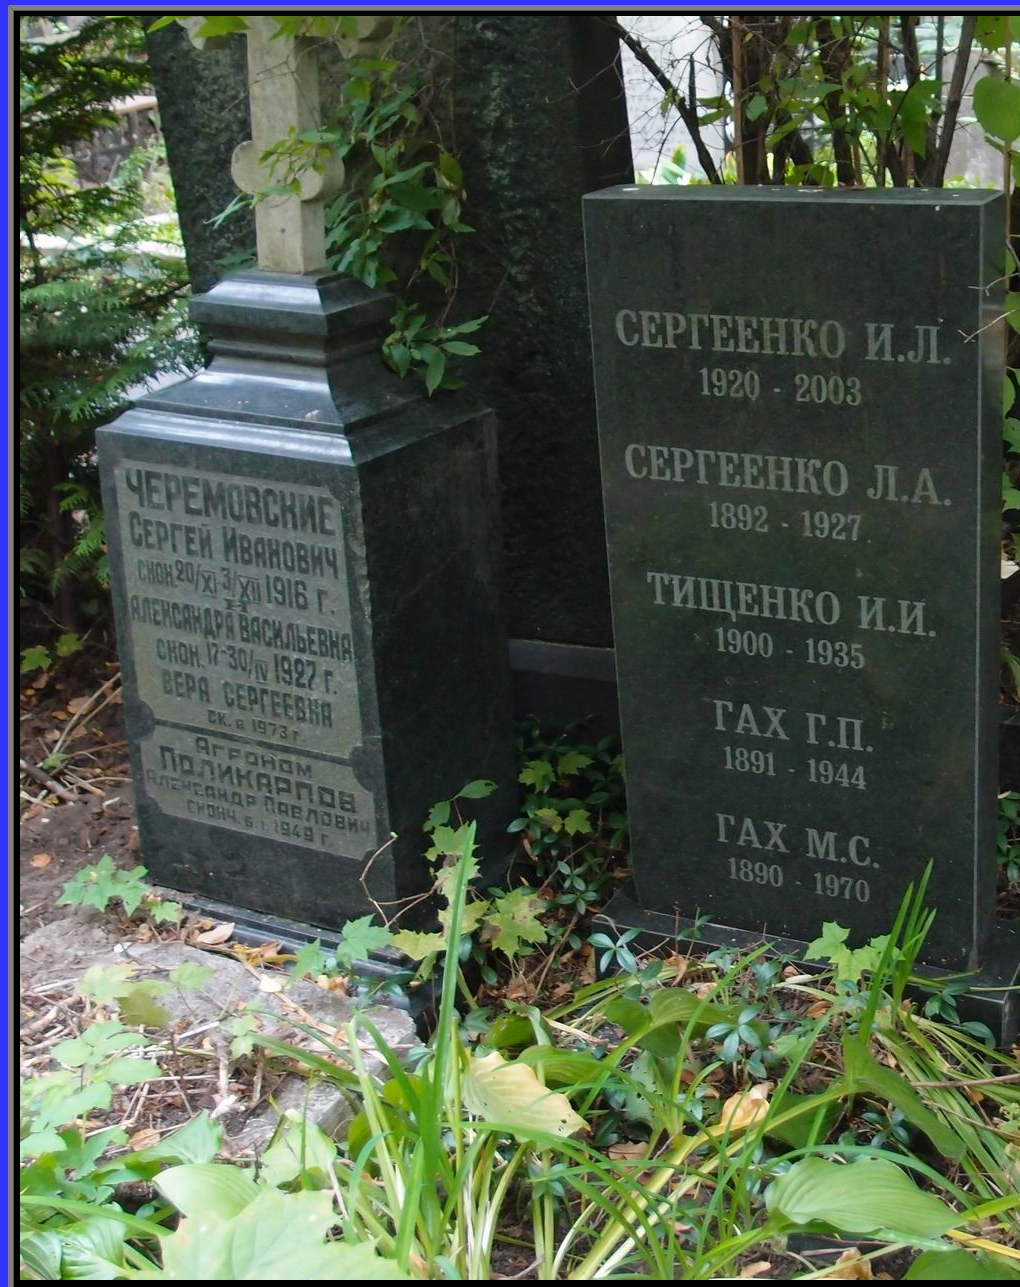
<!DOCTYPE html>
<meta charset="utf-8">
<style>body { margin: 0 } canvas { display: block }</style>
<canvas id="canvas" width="1020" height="1287"></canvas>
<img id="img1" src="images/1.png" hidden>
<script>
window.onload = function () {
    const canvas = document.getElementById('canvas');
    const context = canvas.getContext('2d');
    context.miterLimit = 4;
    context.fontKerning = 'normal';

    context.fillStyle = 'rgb(51, 51, 255)';
    context.fillRect(0, 0, 1020, 1287);
    context.fillStyle = 'rgb(0, 0, 0)';
    context.fillRect(8, 5, 1012, 1282);
    context.fillStyle = 'rgb(128, 128, 128)';
    context.beginPath();
    context.moveTo(8, 5);
    context.lineTo(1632, 5);
    context.lineTo(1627, 10);
    context.lineTo(13, 10);
    context.closePath();
    context.fill();
    context.beginPath();
    context.moveTo(8, 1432);
    context.lineTo(8, 5);
    context.lineTo(13, 10);
    context.lineTo(13, 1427);
    context.closePath();
    context.fill();
    context.fillStyle = 'rgb(85, 85, 85)';
    context.fillRect(13, 10, 1007, 1);
    context.fillRect(13, 10, 1, 1277);
    context.drawImage(document.getElementById('img1'), 20, 16, 1000, 1264);
};
</script>
